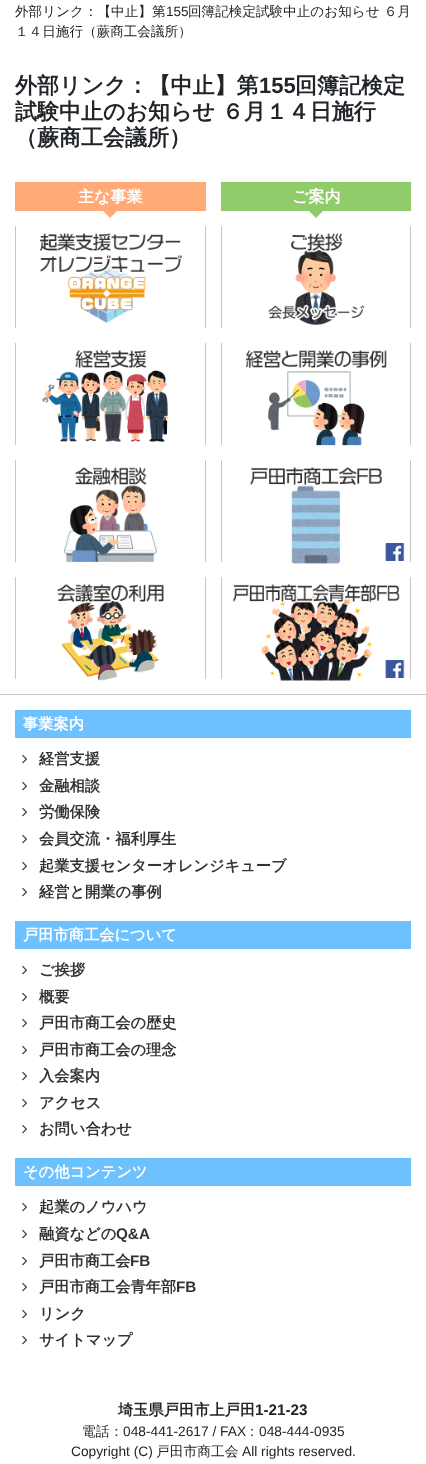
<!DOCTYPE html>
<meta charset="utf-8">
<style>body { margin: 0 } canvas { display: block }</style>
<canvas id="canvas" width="426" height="1464"></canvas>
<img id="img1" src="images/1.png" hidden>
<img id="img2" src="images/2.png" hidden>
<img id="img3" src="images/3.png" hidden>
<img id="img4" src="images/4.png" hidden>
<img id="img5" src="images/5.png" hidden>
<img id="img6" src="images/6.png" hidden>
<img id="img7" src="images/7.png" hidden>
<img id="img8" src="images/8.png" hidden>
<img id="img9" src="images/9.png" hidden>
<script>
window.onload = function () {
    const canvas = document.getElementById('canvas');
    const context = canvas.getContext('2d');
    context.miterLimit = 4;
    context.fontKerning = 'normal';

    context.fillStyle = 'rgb(255, 255, 255)';
    context.fillRect(0, 0, 426, 1464);
    context.fillStyle = 'rgb(255, 170, 119)';
    context.fillRect(15, 182, 191, 29);
    context.beginPath();
    context.moveTo(100, 208);
    context.lineTo(120, 208);
    context.lineTo(110, 218);
    context.closePath();
    context.fill();
    context.strokeStyle = 'rgb(199, 199, 199)';
    context.strokeRect(15.5, 226.5, 190, 101);
    context.drawImage(document.getElementById('img1'), 16, 226, 189, 102);
    context.strokeRect(15.5, 343.5, 190, 101);
    context.drawImage(document.getElementById('img2'), 16, 343, 189, 102);
    context.strokeRect(15.5, 460.5, 190, 101);
    context.drawImage(document.getElementById('img3'), 16, 460, 189, 103);
    context.strokeRect(15.5, 577.5, 190, 101);
    context.drawImage(document.getElementById('img4'), 16, 577, 189, 104);
    context.fillStyle = 'rgb(144, 204, 106)';
    context.fillRect(221, 182, 190, 29);
    context.beginPath();
    context.moveTo(306, 208);
    context.lineTo(326, 208);
    context.lineTo(316, 218);
    context.closePath();
    context.fill();
    context.strokeRect(221.5, 226.5, 189, 101);
    context.drawImage(document.getElementById('img5'), 222, 226, 188, 102);
    context.strokeRect(221.5, 343.5, 189, 101);
    context.drawImage(document.getElementById('img6'), 222, 343, 188, 103);
    context.strokeRect(221.5, 460.5, 189, 101);
    context.drawImage(document.getElementById('img7'), 222, 460, 188, 104);
    context.strokeRect(221.5, 577.5, 189, 101);
    context.drawImage(document.getElementById('img8'), 222, 577, 188, 104);
    context.fillStyle = 'rgb(199, 199, 199)';
    context.fillRect(0, 694, 426, 1);
    context.fillStyle = 'rgb(110, 193, 255)';
    context.fillRect(15, 710, 396, 28);
    context.drawImage(document.getElementById('img9'), 22, 754, 5, 10);
    context.drawImage(document.getElementById('img9'), 22, 781, 5, 10);
    context.drawImage(document.getElementById('img9'), 22, 807, 5, 10);
    context.drawImage(document.getElementById('img9'), 22, 834, 5, 10);
    context.drawImage(document.getElementById('img9'), 22, 861, 5, 10);
    context.drawImage(document.getElementById('img9'), 22, 887, 5, 10);
    context.fillRect(15, 921, 396, 28);
    context.drawImage(document.getElementById('img9'), 22, 965, 5, 10);
    context.drawImage(document.getElementById('img9'), 22, 992, 5, 10);
    context.drawImage(document.getElementById('img9'), 22, 1018, 5, 10);
    context.drawImage(document.getElementById('img9'), 22, 1045, 5, 10);
    context.drawImage(document.getElementById('img9'), 22, 1071, 5, 10);
    context.drawImage(document.getElementById('img9'), 22, 1098, 5, 10);
    context.drawImage(document.getElementById('img9'), 22, 1124, 5, 10);
    context.fillRect(15, 1158, 396, 28);
    context.drawImage(document.getElementById('img9'), 22, 1202, 5, 10);
    context.drawImage(document.getElementById('img9'), 22, 1229, 5, 10);
    context.drawImage(document.getElementById('img9'), 22, 1256, 5, 10);
    context.drawImage(document.getElementById('img9'), 22, 1282, 5, 10);
    context.drawImage(document.getElementById('img9'), 22, 1309, 5, 10);
    context.drawImage(document.getElementById('img9'), 22, 1335, 5, 10);
    context.font = '500 13.6px WenQuanYi Zen Hei';
    context.fillStyle = 'rgb(33, 37, 41)';
    context.fillText('外部リンク：【中止】第', 15, 16);
    context.font = '13.6px Liberation Sans';
    context.fillText('155', 166, 16);
    context.font = '500 13.6px WenQuanYi Zen Hei';
    context.fillText('回簿記検定試験中止のお知らせ ６月', 188, 16);
    context.fillText('１４日施行（蕨商工会議所）', 15, 36);
    context.font = 'bold 22px WenQuanYi Zen Hei';
    context.fillText('外部リンク：【中止】第', 15, 93);
    context.font = 'bold 22px Liberation Sans';
    context.fillText('155', 259, 93);
    context.font = 'bold 22px WenQuanYi Zen Hei';
    context.fillText('回簿記検定', 295, 93);
    context.fillText('試験中止のお知らせ ６月１４日施行', 15, 119);
    context.fillText('（蕨商工会議所）', 15, 145);
    context.font = 'bold 16px WenQuanYi Zen Hei';
    context.fillStyle = 'rgb(255, 255, 255)';
    context.fillText('主な事業', 78, 202);
    context.fillText('ご案内', 292, 202);
    context.font = 'bold 15.25px WenQuanYi Zen Hei';
    context.fillText('事業案内', 23, 729);
    context.fillStyle = 'rgb(51, 51, 51)';
    context.fillText('経営支援', 39, 764);
    context.fillText('金融相談', 39, 791);
    context.fillText('労働保険', 39, 817);
    context.fillText('会員交流・福利厚生', 39, 844);
    context.fillText('起業支援センターオレンジキューブ', 39, 871);
    context.fillText('経営と開業の事例', 39, 897);
    context.fillStyle = 'rgb(255, 255, 255)';
    context.fillText('戸田市商工会について', 23, 940);
    context.fillStyle = 'rgb(51, 51, 51)';
    context.fillText('ご挨拶', 39, 975);
    context.fillText('概要', 39, 1002);
    context.fillText('戸田市商工会の歴史', 39, 1028);
    context.fillText('戸田市商工会の理念', 39, 1055);
    context.fillText('入会案内', 39, 1081);
    context.fillText('アクセス', 39, 1108);
    context.fillText('お問い合わせ', 39, 1134);
    context.fillStyle = 'rgb(255, 255, 255)';
    context.fillText('その他コンテンツ', 23, 1177);
    context.fillStyle = 'rgb(51, 51, 51)';
    context.fillText('起業のノウハウ', 39, 1212);
    context.fillText('融資などの', 39, 1239);
    context.font = 'bold 15.25px Liberation Sans';
    context.fillText('Q&A', 116, 1239);
    context.font = 'bold 15.25px WenQuanYi Zen Hei';
    context.fillText('戸田市商工会', 39, 1266);
    context.font = 'bold 15.25px Liberation Sans';
    context.fillText('FB', 130, 1266);
    context.font = 'bold 15.25px WenQuanYi Zen Hei';
    context.fillText('戸田市商工会青年部', 39, 1292);
    context.font = 'bold 15.25px Liberation Sans';
    context.fillText('FB', 176, 1292);
    context.font = 'bold 15.25px WenQuanYi Zen Hei';
    context.fillText('リンク', 39, 1319);
    context.fillText('サイトマップ', 39, 1345);
    context.fillStyle = 'rgb(33, 37, 41)';
    context.fillText('埼玉県戸田市上戸田', 118, 1415);
    context.font = 'bold 15.25px Liberation Sans';
    context.fillText('1-21-23', 255, 1415);
    context.font = '500 13.75px WenQuanYi Zen Hei';
    context.fillText('電話：', 82, 1436);
    context.font = '13.75px Liberation Sans';
    context.fillText('048-441-2617 / FAX', 123, 1436);
    context.font = '500 13.75px WenQuanYi Zen Hei';
    context.fillText('：', 245, 1436);
    context.font = '13.75px Liberation Sans';
    context.fillText('048-444-0935', 259, 1436);
    context.fillText('Copyright (C)', 71, 1456);
    context.font = '500 13.75px WenQuanYi Zen Hei';
    context.fillText('戸田市商工会', 156, 1456);
    context.font = '13.75px Liberation Sans';
    context.fillText('All rights reserved.', 242, 1456);
};
</script>
